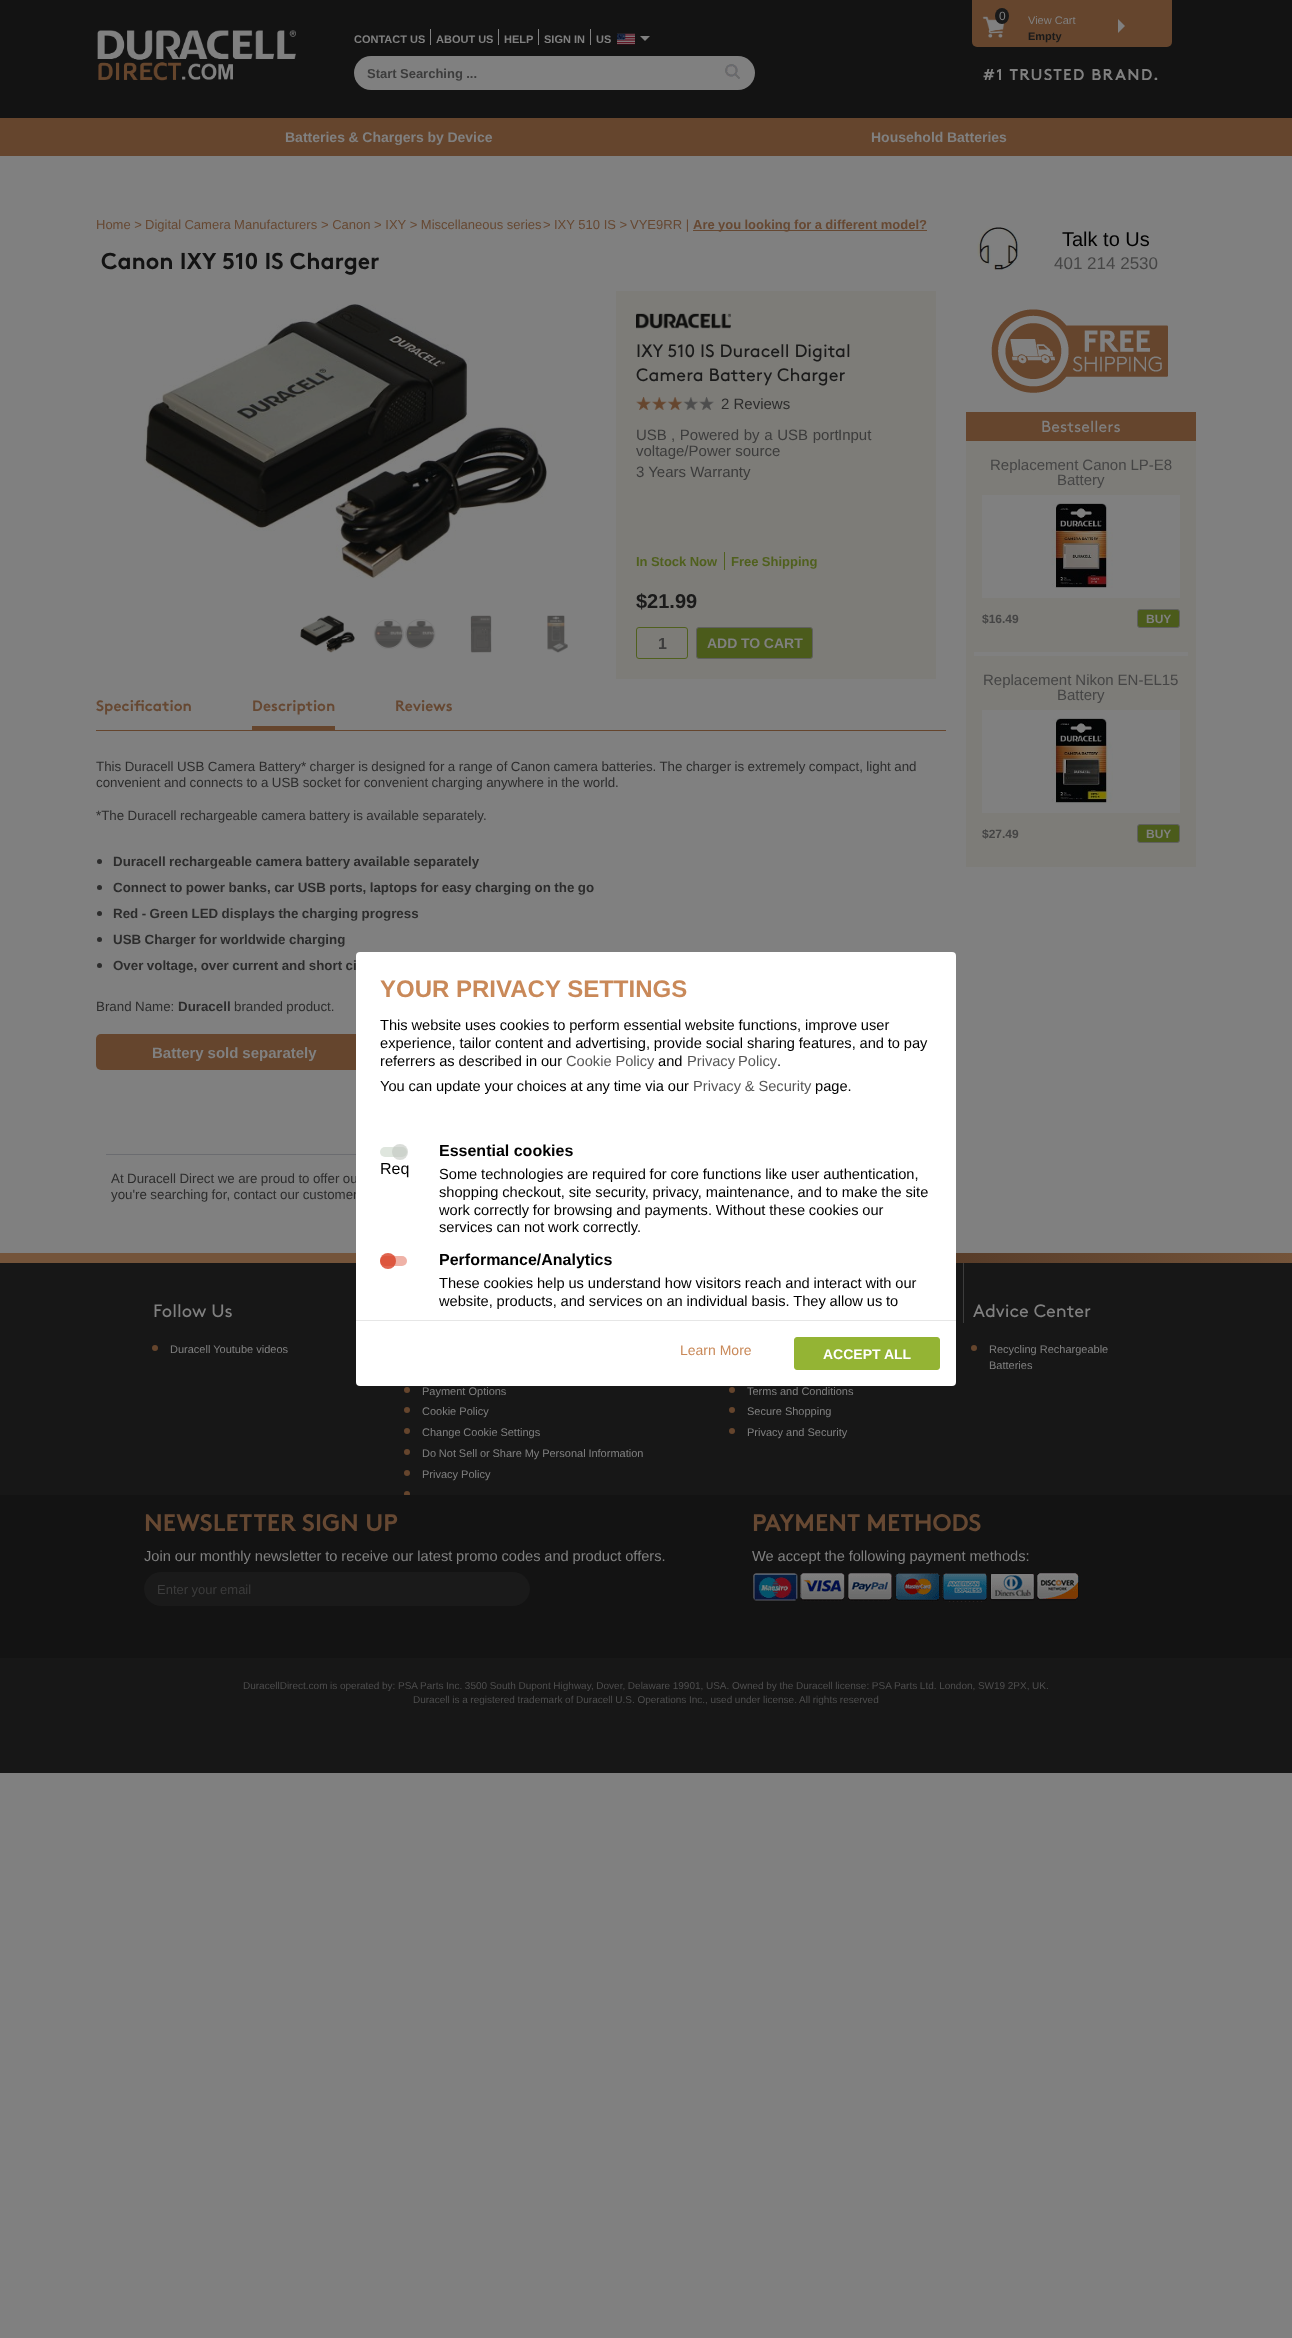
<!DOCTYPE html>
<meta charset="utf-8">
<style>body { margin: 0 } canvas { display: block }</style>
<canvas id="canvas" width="1292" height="2338"></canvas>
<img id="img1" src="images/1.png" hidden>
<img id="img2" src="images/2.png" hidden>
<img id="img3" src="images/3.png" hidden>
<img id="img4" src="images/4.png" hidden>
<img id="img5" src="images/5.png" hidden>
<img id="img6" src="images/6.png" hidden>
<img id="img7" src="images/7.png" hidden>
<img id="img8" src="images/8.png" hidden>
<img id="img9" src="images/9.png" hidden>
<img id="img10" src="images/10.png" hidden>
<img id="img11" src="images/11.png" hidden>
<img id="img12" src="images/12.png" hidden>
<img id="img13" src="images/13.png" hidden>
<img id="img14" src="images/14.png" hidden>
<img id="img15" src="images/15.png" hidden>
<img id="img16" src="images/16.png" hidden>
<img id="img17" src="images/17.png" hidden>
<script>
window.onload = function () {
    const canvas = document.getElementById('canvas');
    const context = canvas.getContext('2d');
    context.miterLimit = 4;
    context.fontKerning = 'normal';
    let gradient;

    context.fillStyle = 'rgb(128, 128, 128)';
    context.fillRect(0, 0, 1292, 2338);
    context.fillStyle = 'rgb(19, 19, 19)';
    context.fillRect(0, 0, 1292, 118);
    context.drawImage(document.getElementById('img1'), 97, 30, 199, 51);
    context.fillStyle = 'rgb(128, 128, 128)';
    context.fillRect(430, 29, 1, 16);
    context.fillRect(498, 29, 1, 16);
    context.fillRect(538, 29, 1, 16);
    context.fillRect(590, 29, 1, 16);
    context.drawImage(document.getElementById('img2'), 617, 33, 18, 12);
    context.beginPath();
    context.moveTo(640, 36);
    context.lineTo(650, 36);
    context.lineTo(645, 41);
    context.closePath();
    context.fill();
    context.beginPath();
    context.roundRect(354, 56, 401, 34, 17);
    context.fill();
    context.drawImage(document.getElementById('img3'), 725, 64, 15, 15);
    context.fillStyle = 'rgb(101, 69, 45)';
    context.beginPath();
    context.roundRect(972, 0, 200, 47, [0, 0, 5, 5]);
    context.fill();
    context.drawImage(document.getElementById('img4'), 982, 16, 23, 22);
    context.fillStyle = 'rgb(26, 26, 26)';
    context.beginPath();
    context.ellipse(1002, 16, 7, 8, 0, 0, 2 * Math.PI);
    context.fill();
    context.fillStyle = 'rgb(128, 128, 128)';
    context.beginPath();
    context.moveTo(1118, 33);
    context.lineTo(1118, 19);
    context.lineTo(1125, 26);
    context.closePath();
    context.fill();
    context.drawImage(document.getElementById('img5'), 983, 68, 175, 12);
    context.fillStyle = 'rgb(101, 69, 45)';
    context.fillRect(0, 118, 1292, 38);
    context.fillStyle = 'rgb(102, 72, 50)';
    context.fillRect(693, 230, 234, 1);
    context.drawImage(document.getElementById('img6'), 144, 304, 403, 275);
    context.drawImage(document.getElementById('img7'), 300, 615, 55, 38);
    context.drawImage(document.getElementById('img8'), 373, 619, 63, 30);
    context.drawImage(document.getElementById('img9'), 470, 615, 22, 38);
    context.drawImage(document.getElementById('img10'), 547, 615, 21, 38);
    context.fillStyle = 'rgb(125, 124, 120)';
    context.fillRect(616, 291, 320, 388);
    context.drawImage(document.getElementById('img11'), 636, 313, 95, 16);
    context.drawImage(document.getElementById('img12'), 636, 397, 78, 13);
    context.fillStyle = 'rgb(80, 96, 30)';
    context.fillRect(724, 552, 1, 18);
    context.beginPath();
    context.roundRect(636.5, 627.5, 51, 31, 2.5);
    context.strokeStyle = 'rgb(80, 96, 30)';
    context.stroke();
    context.fillStyle = 'rgb(75, 91, 27)';
    context.beginPath();
    context.roundRect(696.5, 627.5, 116, 31, 2.5);
    context.fill();
    context.strokeStyle = 'rgb(95, 95, 95)';
    context.stroke();
    context.fillStyle = 'rgb(101, 69, 45)';
    context.fillRect(96, 730, 850, 1);
    context.fillRect(252, 726, 83, 4);
    context.fillStyle = 'rgb(44, 44, 44)';
    context.beginPath();
    context.arc(99.5, 861.5, 2.5, 0, 2 * Math.PI);
    context.fill();
    context.beginPath();
    context.arc(99.5, 887.5, 2.5, 0, 2 * Math.PI);
    context.fill();
    context.beginPath();
    context.arc(99.5, 913.5, 2.5, 0, 2 * Math.PI);
    context.fill();
    context.beginPath();
    context.arc(99.5, 939.5, 2.5, 0, 2 * Math.PI);
    context.fill();
    context.beginPath();
    context.arc(99.5, 965.5, 2.5, 0, 2 * Math.PI);
    context.fill();
    context.fillStyle = 'rgb(101, 69, 45)';
    context.beginPath();
    context.roundRect(96, 1034, 277, 36, 5);
    context.fill();
    context.fillStyle = 'rgb(107, 108, 112)';
    context.fillRect(106, 1154, 250, 1);
    context.drawImage(document.getElementById('img13'), 977, 226, 42, 44);
    context.drawImage(document.getElementById('img14'), 991, 309, 177, 84);
    context.fillStyle = 'rgb(125, 124, 120)';
    context.fillRect(966, 441, 230, 426);
    context.fillStyle = 'rgb(101, 69, 45)';
    context.fillRect(966, 412, 230, 29);
    context.fillStyle = 'rgb(128, 128, 128)';
    context.fillRect(974, 652, 214, 4);
    context.fillRect(982, 495, 198, 103);
    context.drawImage(document.getElementById('img15'), 1051, 503, 62, 85);
    context.fillStyle = 'rgb(75, 91, 27)';
    context.beginPath();
    context.roundRect(1137.5, 609.5, 42, 18, 2.5);
    context.fill();
    context.stroke();
    context.fillStyle = 'rgb(128, 128, 128)';
    context.fillRect(982, 710, 198, 103);
    context.drawImage(document.getElementById('img16'), 1051, 718, 62, 85);
    context.fillStyle = 'rgb(75, 91, 27)';
    context.beginPath();
    context.roundRect(1137.5, 824.5, 42, 18, 2.5);
    context.fill();
    context.stroke();
    gradient = context.createLinearGradient(0, 1258, 1292, 1258);
    gradient.addColorStop(0, 'rgb(116, 84, 58)');
    gradient.addColorStop(0.4, 'rgb(116, 84, 58)');
    gradient.addColorStop(0.6, 'rgb(72, 47, 31)');
    gradient.addColorStop(1, 'rgb(116, 84, 58)');
    context.fillStyle = gradient;
    context.fillRect(0, 1253, 1292, 10);
    context.fillStyle = 'rgb(23, 23, 23)';
    context.fillRect(0, 1263, 1292, 232);
    context.fillStyle = 'rgb(101, 69, 45)';
    context.beginPath();
    context.arc(155, 1348, 3, 0, 2 * Math.PI);
    context.fill();
    context.fillStyle = 'rgb(60, 60, 60)';
    context.fillRect(963, 1263, 1, 60);
    context.fillStyle = 'rgb(101, 69, 45)';
    context.beginPath();
    context.arc(974, 1348, 3, 0, 2 * Math.PI);
    context.fill();
    context.beginPath();
    context.arc(407, 1390, 3, 0, 2 * Math.PI);
    context.fill();
    context.beginPath();
    context.arc(407, 1410, 3, 0, 2 * Math.PI);
    context.fill();
    context.beginPath();
    context.arc(407, 1431, 3, 0, 2 * Math.PI);
    context.fill();
    context.beginPath();
    context.arc(407, 1452, 3, 0, 2 * Math.PI);
    context.fill();
    context.beginPath();
    context.arc(407, 1473, 3, 0, 2 * Math.PI);
    context.fill();
    context.beginPath();
    context.arc(407, 1494, 3, 0, 2 * Math.PI);
    context.fill();
    context.beginPath();
    context.arc(732, 1390, 3, 0, 2 * Math.PI);
    context.fill();
    context.beginPath();
    context.arc(732, 1410, 3, 0, 2 * Math.PI);
    context.fill();
    context.beginPath();
    context.arc(732, 1431, 3, 0, 2 * Math.PI);
    context.fill();
    context.fillStyle = 'rgb(19, 19, 19)';
    context.fillRect(0, 1495, 1292, 163);
    context.fillStyle = 'rgb(26, 26, 26)';
    context.beginPath();
    context.roundRect(144, 1572, 386, 34, 17);
    context.fill();
    context.drawImage(document.getElementById('img17'), 753, 1572, 326, 30);
    context.fillStyle = 'rgb(23, 23, 23)';
    context.fillRect(0, 1658, 1292, 115);
    context.font = 'bold 11px Liberation Sans';
    context.fillStyle = 'rgb(128, 128, 128)';
    context.fillText('CONTACT US', 354, 43);
    context.fillText('ABOUT US', 436, 43);
    context.fillText('HELP', 504, 43);
    context.fillText('SIGN IN', 544, 43);
    context.fillText('US', 596, 43);
    context.wordSpacing = '-0.25px';
    context.font = 'bold 13px Liberation Sans';
    context.fillStyle = 'rgb(60, 60, 60)';
    context.fillText('Start Searching ...', 367, 78);
    context.wordSpacing = '0px';
    context.font = '12px Liberation Sans';
    context.fillStyle = 'rgb(128, 128, 128)';
    context.fillText('0', 999, 20);
    context.font = '11px Liberation Sans';
    context.fillText('View Cart', 1028, 24);
    context.font = 'bold 11px Liberation Sans';
    context.fillStyle = 'rgb(26, 26, 26)';
    context.fillText('Empty', 1028, 40);
    context.wordSpacing = '-0.25px';
    context.font = 'bold 14px Liberation Sans';
    context.fillStyle = 'rgb(128, 128, 128)';
    context.fillText('Batteries & Chargers by Device', 285, 142);
    context.fillText('Household Batteries', 871, 142);
    context.wordSpacing = '0px';
    context.font = '13px Liberation Sans';
    context.fillStyle = 'rgb(102, 72, 50)';
    context.fillText('Home >', 96, 229);
    context.wordSpacing = '-0.25px';
    context.fillText('Digital Camera Manufacturers', 145, 229);
    context.wordSpacing = '0px';
    context.fillText('> Canon > IXY > Miscellaneous series', 321, 229);
    context.fillText('>', 543, 229);
    context.fillText('IXY 510 IS >', 554, 229);
    context.fillText('VYE9RR |', 630, 229);
    context.wordSpacing = '-0.25px';
    context.font = 'bold 13px Liberation Sans';
    context.fillText('Are you looking for a different model?', 693, 229);
    context.wordSpacing = '0px';
    context.font = 'bold 23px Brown';
    context.fillStyle = 'rgb(18, 18, 18)';
    context.fillText('Canon IXY 510 IS Charger', 101, 269);
    context.font = '18px Brown';
    context.fillStyle = 'rgb(26, 26, 26)';
    context.fillText('IXY 510 IS Duracell Digital', 636, 357);
    context.fillText('Camera Battery Charger', 636, 381);
    context.font = '15px Liberation Sans';
    context.fillStyle = 'rgb(44, 44, 44)';
    context.fillText('2 Reviews', 721, 409);
    context.fillStyle = 'rgb(60, 60, 60)';
    context.fillText('USB', 636, 440);
    context.wordSpacing = '0.5px';
    context.fillText(', Powered by a USB port', 671, 440);
    context.wordSpacing = '0px';
    context.fillText('Input', 838, 440);
    context.fillText('voltage/Power source', 636, 456);
    context.fillText('3 Years Warranty', 636, 477);
    context.wordSpacing = '-0.25px';
    context.font = 'bold 13px Liberation Sans';
    context.fillStyle = 'rgb(80, 96, 30)';
    context.fillText('In Stock Now', 636, 566);
    context.fillText('Free Shipping', 731, 566);
    context.wordSpacing = '0px';
    context.font = 'bold 20px Liberation Sans';
    context.fillStyle = 'rgb(26, 26, 26)';
    context.fillText('$21.99', 636, 608);
    context.font = 'bold 16px Liberation Sans';
    context.fillStyle = 'rgb(60, 60, 60)';
    context.fillText('1', 658, 649);
    context.wordSpacing = '-0.25px';
    context.font = 'bold 14px Liberation Sans';
    context.fillStyle = 'rgb(128, 128, 128)';
    context.fillText('ADD TO CART', 707, 648);
    context.wordSpacing = '0px';
    context.font = 'bold 15px Brown';
    context.fillStyle = 'rgb(102, 72, 50)';
    context.fillText('Specification', 96, 711);
    context.fillText('Description', 252, 711);
    context.fillText('Reviews', 395, 711);
    context.wordSpacing = '-0.25px';
    context.font = '13.33px Liberation Sans';
    context.fillStyle = 'rgb(44, 44, 44)';
    context.fillText('This Duracell USB Camera Battery* charger is designed for a range of Canon camera batteries. The charger is extremely compact, light and', 96, 771);
    context.fillText('convenient and connects to a USB socket for convenient charging anywhere in the world.', 96, 787);
    context.fillText('*The Duracell rechargeable camera battery is available separately.', 96, 820);
    context.font = 'bold 13.33px Liberation Sans';
    context.fillText('Duracell rechargeable camera battery available separately', 113, 866);
    context.fillText('Connect to power banks, car USB ports, laptops for easy charging on the go', 113, 892);
    context.fillText('Red - Green LED displays the charging progress', 113, 918);
    context.fillText('USB Charger for worldwide charging', 113, 944);
    context.fillText('Over voltage, over current and short ci', 113, 970);
    context.font = '13.33px Liberation Sans';
    context.fillText('Brand Name:', 96, 1011);
    context.wordSpacing = '0px';
    context.font = 'bold 13.33px Liberation Sans';
    context.fillText('Duracell', 178, 1011);
    context.wordSpacing = '-0.25px';
    context.font = '13.33px Liberation Sans';
    context.fillText('branded product.', 234, 1011);
    context.font = 'bold 15px Liberation Sans';
    context.fillStyle = 'rgb(128, 128, 128)';
    context.fillText('Battery sold separately', 152, 1058);
    context.font = '13.33px Liberation Sans';
    context.fillStyle = 'rgb(44, 44, 44)';
    context.fillText('At Duracell Direct we are proud to offer ou', 111, 1183);
    context.fillText('you\'re searching for, contact our customer', 111, 1199);
    context.wordSpacing = '0px';
    context.font = '20px Liberation Sans';
    context.fillStyle = 'rgb(1, 1, 1)';
    context.fillText('Talk to Us', 1062, 246);
    context.font = '17px Liberation Sans';
    context.fillStyle = 'rgb(69, 69, 69)';
    context.fillText('401 214 2530', 1054, 269);
    context.font = '16px Brown';
    context.fillStyle = 'rgb(128, 128, 128)';
    context.fillText('Bestsellers', 1041, 432);
    context.wordSpacing = '-0.25px';
    context.font = '15px Liberation Sans';
    context.fillStyle = 'rgb(69, 69, 69)';
    context.fillText('Replacement Canon LP-E8', 990, 470);
    context.wordSpacing = '0px';
    context.fillText('Battery', 1057, 485);
    context.font = 'bold 12px Liberation Sans';
    context.fillText('$16.49', 982, 623);
    context.fillStyle = 'rgb(128, 128, 128)';
    context.fillText('BUY', 1146, 623);
    context.wordSpacing = '-0.25px';
    context.font = '15px Liberation Sans';
    context.fillStyle = 'rgb(69, 69, 69)';
    context.fillText('Replacement Nikon EN-EL15', 983, 685);
    context.wordSpacing = '0px';
    context.fillText('Battery', 1057, 700);
    context.font = 'bold 12px Liberation Sans';
    context.fillText('$27.49', 982, 838);
    context.fillStyle = 'rgb(128, 128, 128)';
    context.fillText('BUY', 1146, 838);
    context.fillStyle = 'rgb(255, 255, 255)';
    context.beginPath();
    context.roundRect(356, 952, 600, 434, 4);
    context.fill();
    context.font = 'bold 24px Liberation Sans';
    context.fillStyle = 'rgb(201, 137, 89)';
    context.fillText('YOUR PRIVACY SETTINGS', 380, 997);
    context.wordSpacing = '-0.25px';
    context.font = '14.65px Liberation Sans';
    context.fillStyle = 'rgb(1, 1, 1)';
    context.fillText('This website uses cookies to perform essential website functions, improve user', 380, 1030);
    context.fillText('experience, tailor content and advertising, provide social sharing features, and to pay', 380, 1048);
    context.fillText('referrers as described in our', 380, 1066);
    context.fillStyle = 'rgb(87, 87, 87)';
    context.fillText('Cookie Policy', 566, 1066);
    context.wordSpacing = '0px';
    context.fillStyle = 'rgb(1, 1, 1)';
    context.fillText('and', 658, 1066);
    context.wordSpacing = '-1px';
    context.fillStyle = 'rgb(87, 87, 87)';
    context.fillText('Privacy Policy', 687, 1066);
    context.wordSpacing = '0px';
    context.fillStyle = 'rgb(1, 1, 1)';
    context.fillText('.', 777, 1066);
    context.wordSpacing = '-0.25px';
    context.fillText('You can update your choices at any time via our', 380, 1091);
    context.fillStyle = 'rgb(87, 87, 87)';
    context.fillText('Privacy & Security', 693, 1091);
    context.wordSpacing = '0px';
    context.fillStyle = 'rgb(1, 1, 1)';
    context.fillText('page.', 815, 1091);
    context.fillStyle = 'rgb(223, 230, 222)';
    context.beginPath();
    context.roundRect(380, 1147, 27, 10, 5);
    context.fill();
    context.fillStyle = 'rgba(193, 198, 192, 0.6)';
    context.beginPath();
    context.arc(400, 1152, 8, 0, 2 * Math.PI);
    context.fill();
    context.font = '16px Liberation Sans';
    context.fillStyle = 'rgb(1, 1, 1)';
    context.fillText('Req', 380, 1174);
    context.font = 'bold 16px Liberation Sans';
    context.fillText('Essential cookies', 439, 1156);
    context.wordSpacing = '-0.25px';
    context.font = '14.65px Liberation Sans';
    context.fillText('Some technologies are required for core functions like user authentication,', 439, 1179);
    context.fillText('shopping checkout, site security, privacy, maintenance, and to make the site', 439, 1197);
    context.fillText('work correctly for browsing and payments. Without these cookies our', 439, 1215);
    context.fillText('services can not work correctly.', 439, 1232);
    context.fillStyle = 'rgb(239, 178, 167)';
    context.beginPath();
    context.roundRect(380, 1256, 27, 10, 5);
    context.fill();
    context.fillStyle = 'rgba(216, 63, 36, 0.8)';
    context.beginPath();
    context.arc(388, 1261, 8, 0, 2 * Math.PI);
    context.fill();
    context.wordSpacing = '0px';
    context.font = 'bold 16px Liberation Sans';
    context.fillStyle = 'rgb(1, 1, 1)';
    context.fillText('Performance/Analytics', 439, 1265);
    context.wordSpacing = '-0.25px';
    context.font = '14.65px Liberation Sans';
    context.fillText('These cookies help us understand how visitors reach and interact with our', 439, 1288);
    context.fillText('website, products, and services on an individual basis. They allow us to', 439, 1306);
    context.fillStyle = 'rgb(230, 230, 230)';
    context.fillRect(356, 1320, 600, 1);
    context.wordSpacing = '0px';
    context.font = '14px Liberation Sans';
    context.fillStyle = 'rgb(201, 137, 89)';
    context.fillText('Learn More', 680, 1355);
    context.fillStyle = 'rgb(148, 180, 52)';
    context.beginPath();
    context.roundRect(794.5, 1337.5, 145, 32, 2.5);
    context.fill();
    context.strokeStyle = 'rgb(148, 180, 52)';
    context.stroke();
    context.font = 'bold 14px Liberation Sans';
    context.fillStyle = 'rgb(255, 255, 255)';
    context.fillText('ACCEPT ALL', 823, 1359);
    context.font = '18px Brown';
    context.fillStyle = 'rgb(128, 128, 128)';
    context.fillText('Follow Us', 153, 1317);
    context.font = '11px Liberation Sans';
    context.fillText('Duracell Youtube videos', 170, 1353);
    context.font = '18px Brown';
    context.fillText('Advice Center', 973, 1317);
    context.font = '11px Liberation Sans';
    context.fillText('Recycling Rechargeable', 989, 1353);
    context.fillText('Batteries', 989, 1369);
    context.fillText('Payment Options', 422, 1395);
    context.fillText('Cookie Policy', 422, 1415);
    context.wordSpacing = '-0.25px';
    context.fillText('Change Cookie Settings', 422, 1436);
    context.fillText('Do Not Sell or Share My Personal Information', 422, 1457);
    context.wordSpacing = '0px';
    context.fillText('Privacy Policy', 422, 1478);
    context.fillText('Terms and Conditions', 747, 1395);
    context.fillText('Secure Shopping', 747, 1415);
    context.fillText('Privacy and Security', 747, 1436);
    context.font = 'bold 24px Brown';
    context.fillStyle = 'rgb(102, 72, 50)';
    context.fillText('NEWSLETTER SIGN UP', 144, 1531);
    context.wordSpacing = '-0.25px';
    context.font = '14.65px Liberation Sans';
    context.fillStyle = 'rgb(128, 128, 128)';
    context.fillText('Join our monthly newsletter to receive our latest promo codes and product offers.', 144, 1561);
    context.font = '13px Liberation Sans';
    context.fillStyle = 'rgb(60, 60, 60)';
    context.fillText('Enter your email', 157, 1594);
    context.wordSpacing = '0px';
    context.font = 'bold 24px Brown';
    context.fillStyle = 'rgb(102, 72, 50)';
    context.fillText('PAYMENT METHODS', 752, 1531);
    context.wordSpacing = '-0.25px';
    context.font = '14.65px Liberation Sans';
    context.fillStyle = 'rgb(128, 128, 128)';
    context.fillText('We accept the following payment methods:', 752, 1561);
    context.wordSpacing = '-0.15px';
    context.font = '10px Liberation Sans';
    context.fillStyle = 'rgb(78, 78, 78)';
    context.fillText('DuracellDirect.com is operated by: PSA Parts Inc. 3500 South Dupont Highway, Dover, Delaware 19901, USA. Owned by the Duracell license: PSA Parts Ltd. London, SW19 2PX, UK.', 243, 1689);
    context.fillText('Duracell is a registered trademark of Duracell U.S. Operations Inc., used under license. All rights reserved', 413, 1703);
};
</script>
